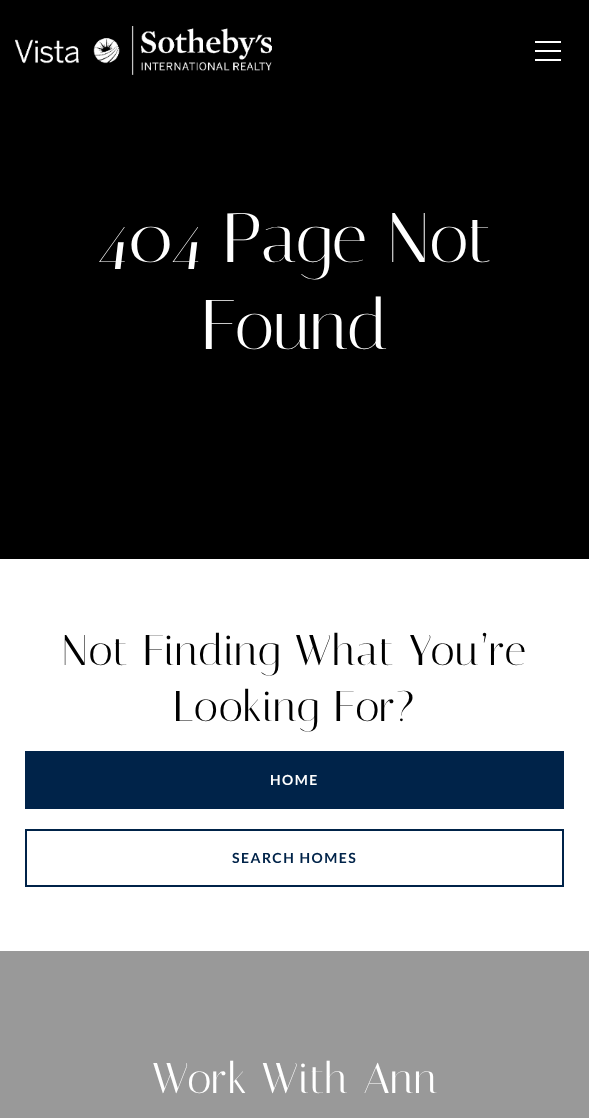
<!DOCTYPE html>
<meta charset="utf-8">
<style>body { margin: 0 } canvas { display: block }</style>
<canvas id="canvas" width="589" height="1118"></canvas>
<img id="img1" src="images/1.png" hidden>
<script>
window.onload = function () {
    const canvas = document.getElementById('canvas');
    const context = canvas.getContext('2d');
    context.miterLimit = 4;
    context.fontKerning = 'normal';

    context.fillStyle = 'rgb(255, 255, 255)';
    context.fillRect(0, 0, 589, 1118);
    context.fillStyle = 'rgb(0, 0, 0)';
    context.fillRect(0, 0, 589, 559);
    context.drawImage(document.getElementById('img1'), 15, 26, 257, 49);
    context.fillStyle = 'rgb(255, 255, 255)';
    context.fillRect(535, 50, 26, 2);
    context.fillRect(535, 41, 26, 2);
    context.fillRect(535, 59, 26, 2);
    context.fillStyle = 'rgb(0, 35, 73)';
    context.fillRect(25, 751, 539, 58);
    context.strokeStyle = 'rgb(0, 35, 73)';
    context.lineWidth = 2;
    context.strokeRect(26, 830, 537, 56);
    context.fillStyle = 'rgb(153, 153, 153)';
    context.fillRect(0, 951, 589, 167);
    context.font = '70px Italiana';
    context.fillStyle = 'rgb(255, 255, 255)';
    context.fillText('404 Page Not', 97, 262);
    context.fillText('Found', 201, 349);
    context.letterSpacing = '1px';
    context.font = '43px Italiana';
    context.fillStyle = 'rgb(0, 0, 0)';
    context.fillText('Not Finding What You’re', 62, 665);
    context.fillText('Looking For?', 173, 721);
    context.letterSpacing = '1.5px';
    context.font = 'bold 14px Lato';
    context.fillStyle = 'rgb(255, 255, 255)';
    context.fillText('HOME', 270, 785);
    context.fillStyle = 'rgb(0, 35, 73)';
    context.fillText('SEARCH HOMES', 232, 863);
    context.letterSpacing = '1px';
    context.font = '43px Italiana';
    context.fillStyle = 'rgb(255, 255, 255)';
    context.fillText('Work With Ann', 152, 1093);
};
</script>
